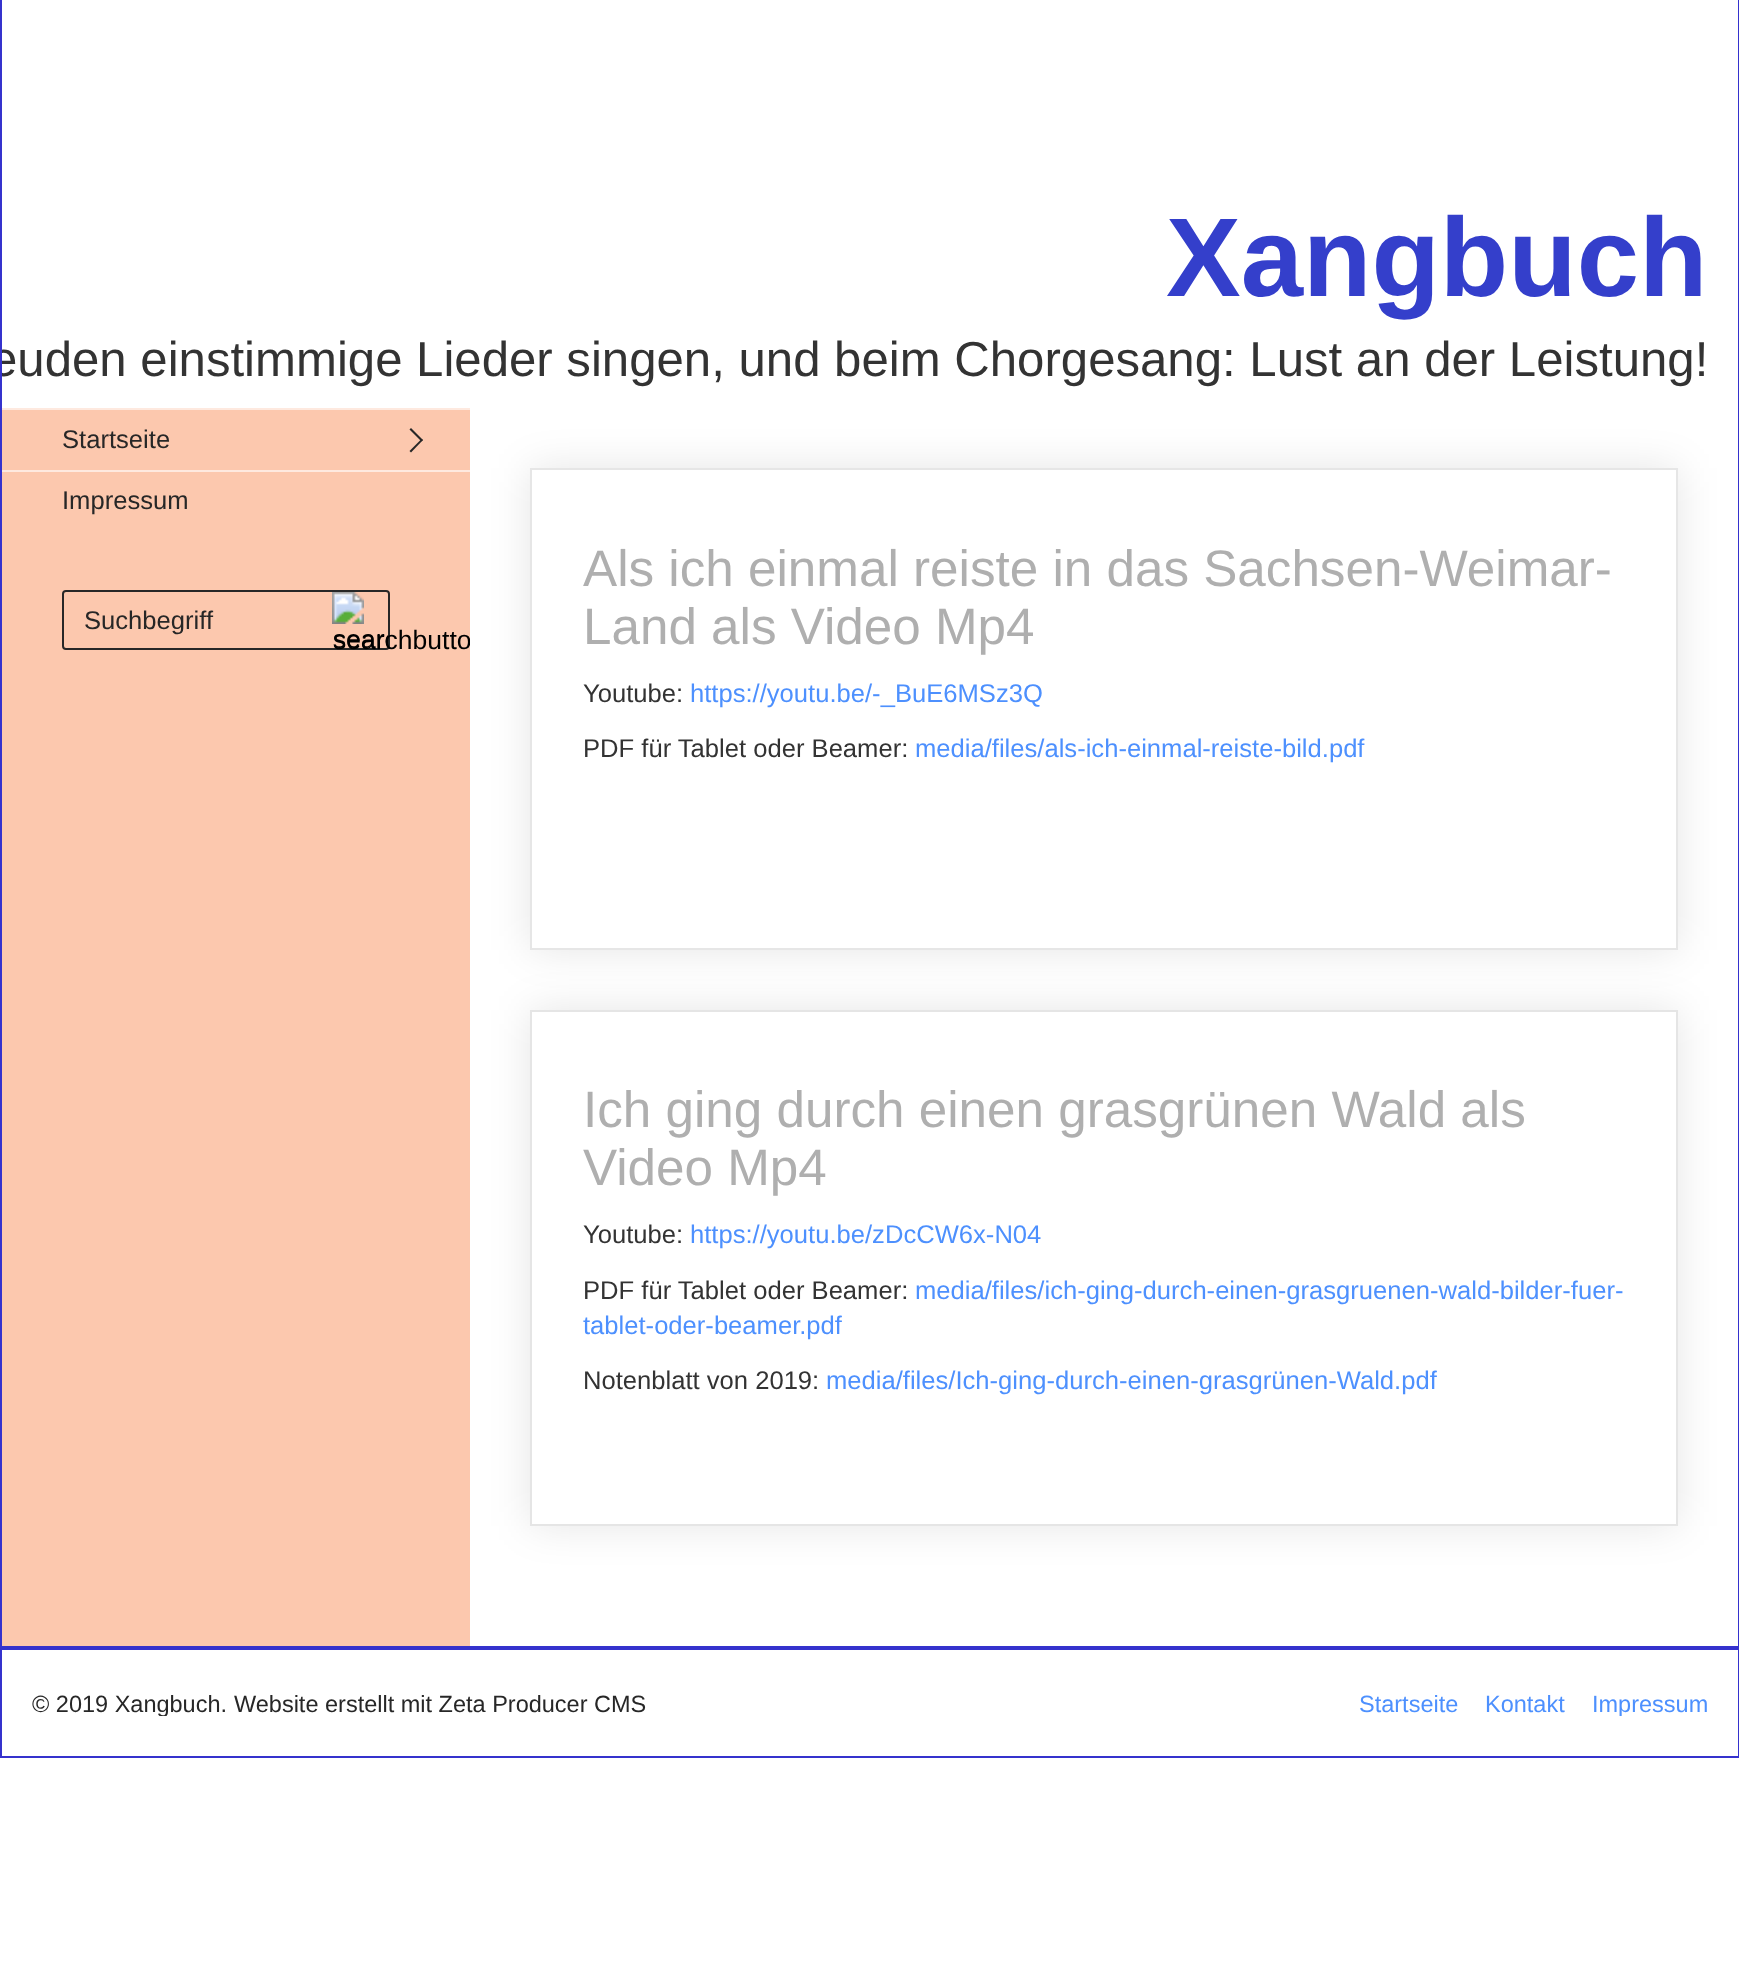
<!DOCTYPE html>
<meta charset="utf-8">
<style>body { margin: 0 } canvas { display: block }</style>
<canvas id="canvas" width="1739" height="1983"></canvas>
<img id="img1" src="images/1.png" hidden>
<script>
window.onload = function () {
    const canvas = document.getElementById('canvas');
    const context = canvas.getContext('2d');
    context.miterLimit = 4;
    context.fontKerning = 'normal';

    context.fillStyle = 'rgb(255, 255, 255)';
    context.fillRect(0, 0, 1739, 1983);
    context.fillStyle = 'rgb(53, 50, 205)';
    context.fillRect(1738, 0, 1, 1648);
    context.fillRect(0, 1646, 1739, 2);
    context.fillRect(0, 0, 2, 1648);
    context.fillStyle = 'rgb(252, 200, 174)';
    context.fillRect(2, 410, 468, 1236);
    context.fillStyle = 'rgb(254, 233, 223)';
    context.fillRect(2, 408, 468, 2);
    context.fillStyle = 'rgb(39, 39, 39)';
    context.beginPath();
    context.moveTo(411, 428);
    context.lineTo(423, 440);
    context.lineTo(421.5, 441.5);
    context.lineTo(409.5, 429.5);
    context.closePath();
    context.fill();
    context.beginPath();
    context.moveTo(421.5, 439);
    context.lineTo(423, 440);
    context.lineTo(411, 452.5);
    context.lineTo(409.5, 451);
    context.closePath();
    context.fill();
    context.fillStyle = 'rgb(254, 233, 223)';
    context.fillRect(2, 470, 468, 2);
    context.beginPath();
    context.roundRect(63, 591, 326, 58, 3);
    context.strokeStyle = 'rgb(39, 39, 39)';
    context.lineWidth = 2;
    context.stroke();
    context.drawImage(document.getElementById('img1'), 332, 592, 56, 56);
    context.save();
    context.beginPath();
    context.moveTo(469, 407);
    context.lineTo(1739, 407);
    context.lineTo(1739, 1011);
    context.lineTo(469, 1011);
    context.closePath();
    context.moveTo(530, 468);
    context.lineTo(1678, 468);
    context.lineTo(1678, 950);
    context.lineTo(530, 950);
    context.closePath();
    context.clip('evenodd');
    context.fillStyle = 'rgba(0, 0, 0, 0.1)';
    context.filter = 'blur(20px)';
    context.beginPath();
    context.rect(530, 468, 1148, 482);
    context.fill();
    context.filter = 'none';
    context.restore();
    context.strokeStyle = 'rgb(230, 230, 230)';
    context.strokeRect(531, 469, 1146, 480);
    context.save();
    context.beginPath();
    context.moveTo(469, 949);
    context.lineTo(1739, 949);
    context.lineTo(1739, 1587);
    context.lineTo(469, 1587);
    context.closePath();
    context.moveTo(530, 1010);
    context.lineTo(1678, 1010);
    context.lineTo(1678, 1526);
    context.lineTo(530, 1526);
    context.closePath();
    context.clip('evenodd');
    context.fillStyle = 'rgba(0, 0, 0, 0.1)';
    context.filter = 'blur(20px)';
    context.beginPath();
    context.rect(530, 1010, 1148, 516);
    context.fill();
    context.filter = 'none';
    context.restore();
    context.strokeStyle = 'rgb(229, 229, 229)';
    context.strokeRect(531, 1011, 1146, 514);
    context.strokeStyle = 'rgb(53, 50, 205)';
    context.strokeRect(1, 1649, 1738, 108);
    context.font = 'bold 112px Liberation Sans';
    context.fillStyle = 'rgb(52, 63, 203)';
    context.fillText('Xangbuch', 1166, 296);
    context.save();
    context.beginPath();
    context.rect(2, 0, 1736, 408);
    context.clip();
    context.font = '49.15px Liberation Sans';
    context.fillStyle = 'rgb(51, 51, 51)';
    context.fillText('euden einstimmige Lieder singen, und beim Chorgesang: Lust an der Leistung!', -10, 376);
    context.restore();
    context.font = '25.6px Liberation Sans';
    context.fillStyle = 'rgb(39, 39, 39)';
    context.fillText('Startseite', 62, 448);
    context.fillText('Impressum', 62, 509);
    context.fillText('Suchbegriff', 84, 629);
    context.save();
    context.beginPath();
    context.rect(2, 408, 468, 302);
    context.clip();
    context.font = '26.5px Liberation Sans';
    context.fillStyle = 'rgb(0, 0, 0)';
    context.fillText('searchbutto', 333, 649);
    context.restore();
    context.font = '51.2px Liberation Sans';
    context.fillStyle = 'rgb(175, 175, 175)';
    context.fillText('Als ich einmal reiste in das Sachsen-Weimar-', 583, 586);
    context.fillText('Land als Video Mp4', 583, 644);
    context.font = '25.6px Liberation Sans';
    context.fillStyle = 'rgb(51, 51, 51)';
    context.fillText('Youtube:', 583, 702);
    context.fillStyle = 'rgb(77, 144, 254)';
    context.fillText('https://youtu.be/-_BuE6MSz3Q', 690, 702);
    context.fillStyle = 'rgb(51, 51, 51)';
    context.fillText('PDF für Tablet oder Beamer:', 583, 757);
    context.fillStyle = 'rgb(77, 144, 254)';
    context.fillText('media/files/als-ich-einmal-reiste-bild.pdf', 915, 757);
    context.font = '51.2px Liberation Sans';
    context.fillStyle = 'rgb(175, 175, 175)';
    context.fillText('Ich ging durch einen grasgrünen Wald als', 583, 1127);
    context.fillText('Video Mp4', 583, 1185);
    context.font = '25.6px Liberation Sans';
    context.fillStyle = 'rgb(51, 51, 51)';
    context.fillText('Youtube:', 583, 1243);
    context.fillStyle = 'rgb(77, 144, 254)';
    context.fillText('https://youtu.be/zDcCW6x-N04', 690, 1243);
    context.fillStyle = 'rgb(51, 51, 51)';
    context.fillText('PDF für Tablet oder Beamer:', 583, 1299);
    context.fillStyle = 'rgb(77, 144, 254)';
    context.fillText('media/files/ich-ging-durch-einen-grasgruenen-wald-bilder-fuer-', 915, 1299);
    context.fillText('tablet-oder-beamer.pdf', 583, 1334);
    context.fillStyle = 'rgb(51, 51, 51)';
    context.fillText('Notenblatt von 2019:', 583, 1389);
    context.fillStyle = 'rgb(77, 144, 254)';
    context.fillText('media/files/Ich-ging-durch-einen-grasgrünen-Wald.pdf', 826, 1389);
    context.save();
    context.beginPath();
    context.rect(32, 1690, 614, 26);
    context.clip();
    context.font = '23.5px Liberation Sans';
    context.fillStyle = 'rgb(39, 39, 39)';
    context.fillText('© 2019 Xangbuch.', 32, 1712);
    context.restore();
    context.font = '23.5px Liberation Sans';
    context.fillStyle = 'rgb(39, 39, 39)';
    context.fillText('Website erstellt mit Zeta Producer CMS', 234, 1712);
    context.fillStyle = 'rgb(77, 144, 254)';
    context.fillText('Startseite', 1359, 1712);
    context.fillText('Kontakt', 1485, 1712);
    context.save();
    context.beginPath();
    context.rect(1340, 1690, 368, 26);
    context.clip();
    context.fillText('Impressum', 1592, 1712);
    context.restore();
};
</script>
